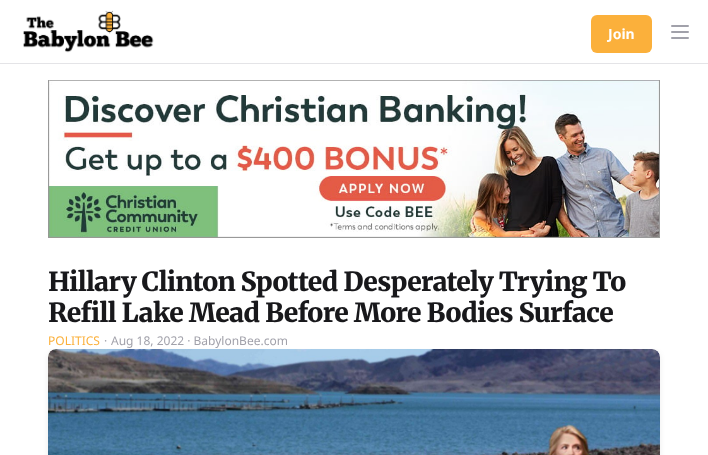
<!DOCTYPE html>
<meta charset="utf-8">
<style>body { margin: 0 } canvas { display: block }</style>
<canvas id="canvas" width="708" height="455"></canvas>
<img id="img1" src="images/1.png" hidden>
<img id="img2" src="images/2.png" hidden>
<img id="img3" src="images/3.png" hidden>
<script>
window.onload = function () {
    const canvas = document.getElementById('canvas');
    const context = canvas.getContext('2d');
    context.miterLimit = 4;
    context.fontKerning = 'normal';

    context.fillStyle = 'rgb(255, 255, 255)';
    context.fillRect(0, 0, 708, 455);
    context.fillStyle = 'rgb(228, 228, 231)';
    context.fillRect(0, 63, 708, 1);
    context.drawImage(document.getElementById('img1'), 23, 10, 131, 43);
    context.fillStyle = 'rgb(251, 176, 59)';
    context.beginPath();
    context.roundRect(591, 15, 61, 38, 6);
    context.fill();
    context.beginPath();
    context.moveTo(672, 26);
    context.lineTo(688, 26);
    context.moveTo(672, 32);
    context.lineTo(688, 32);
    context.moveTo(672, 38);
    context.lineTo(688, 38);
    context.strokeStyle = 'rgb(161, 161, 170)';
    context.lineWidth = 2;
    context.lineCap = 'round';
    context.lineJoin = 'round';
    context.stroke();
    context.drawImage(document.getElementById('img2'), 48, 80, 612, 158);
    context.fillStyle = 'rgba(0, 0, 0, 0.1)';
    context.filter = 'blur(3px)';
    context.beginPath();
    context.roundRect(49, 354, 610, 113, 3);
    context.fill();
    context.filter = 'none';
    context.fillStyle = 'rgb(250, 250, 250)';
    context.beginPath();
    context.roundRect(48, 349, 612, 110, 4);
    context.fill();
    context.drawImage(document.getElementById('img3'), 48, 349, 612, 106);
    context.font = 'bold 14px Noto Sans';
    context.fillStyle = 'rgb(255, 255, 255)';
    context.fillText('Join', 608, 39);
    context.letterSpacing = '-0.65px';
    context.font = '900 26.4px Merriweather';
    context.fillStyle = 'rgb(24, 24, 27)';
    context.fillText('Hillary Clinton Spotted Desperately Trying To', 48, 291);
    context.fillText('Refill Lake Mead Before More Bodies Surface', 48, 322);
    context.letterSpacing = '0px';
    context.font = '12px Noto Sans';
    context.fillStyle = 'rgb(251, 176, 59)';
    context.fillText('POLITICS', 48, 345);
    context.fillStyle = 'rgb(161, 161, 170)';
    context.fillText('·', 104, 345);
    context.fillText('Aug 18, 2022 · BabylonBee.com', 111, 345);
};
</script>
